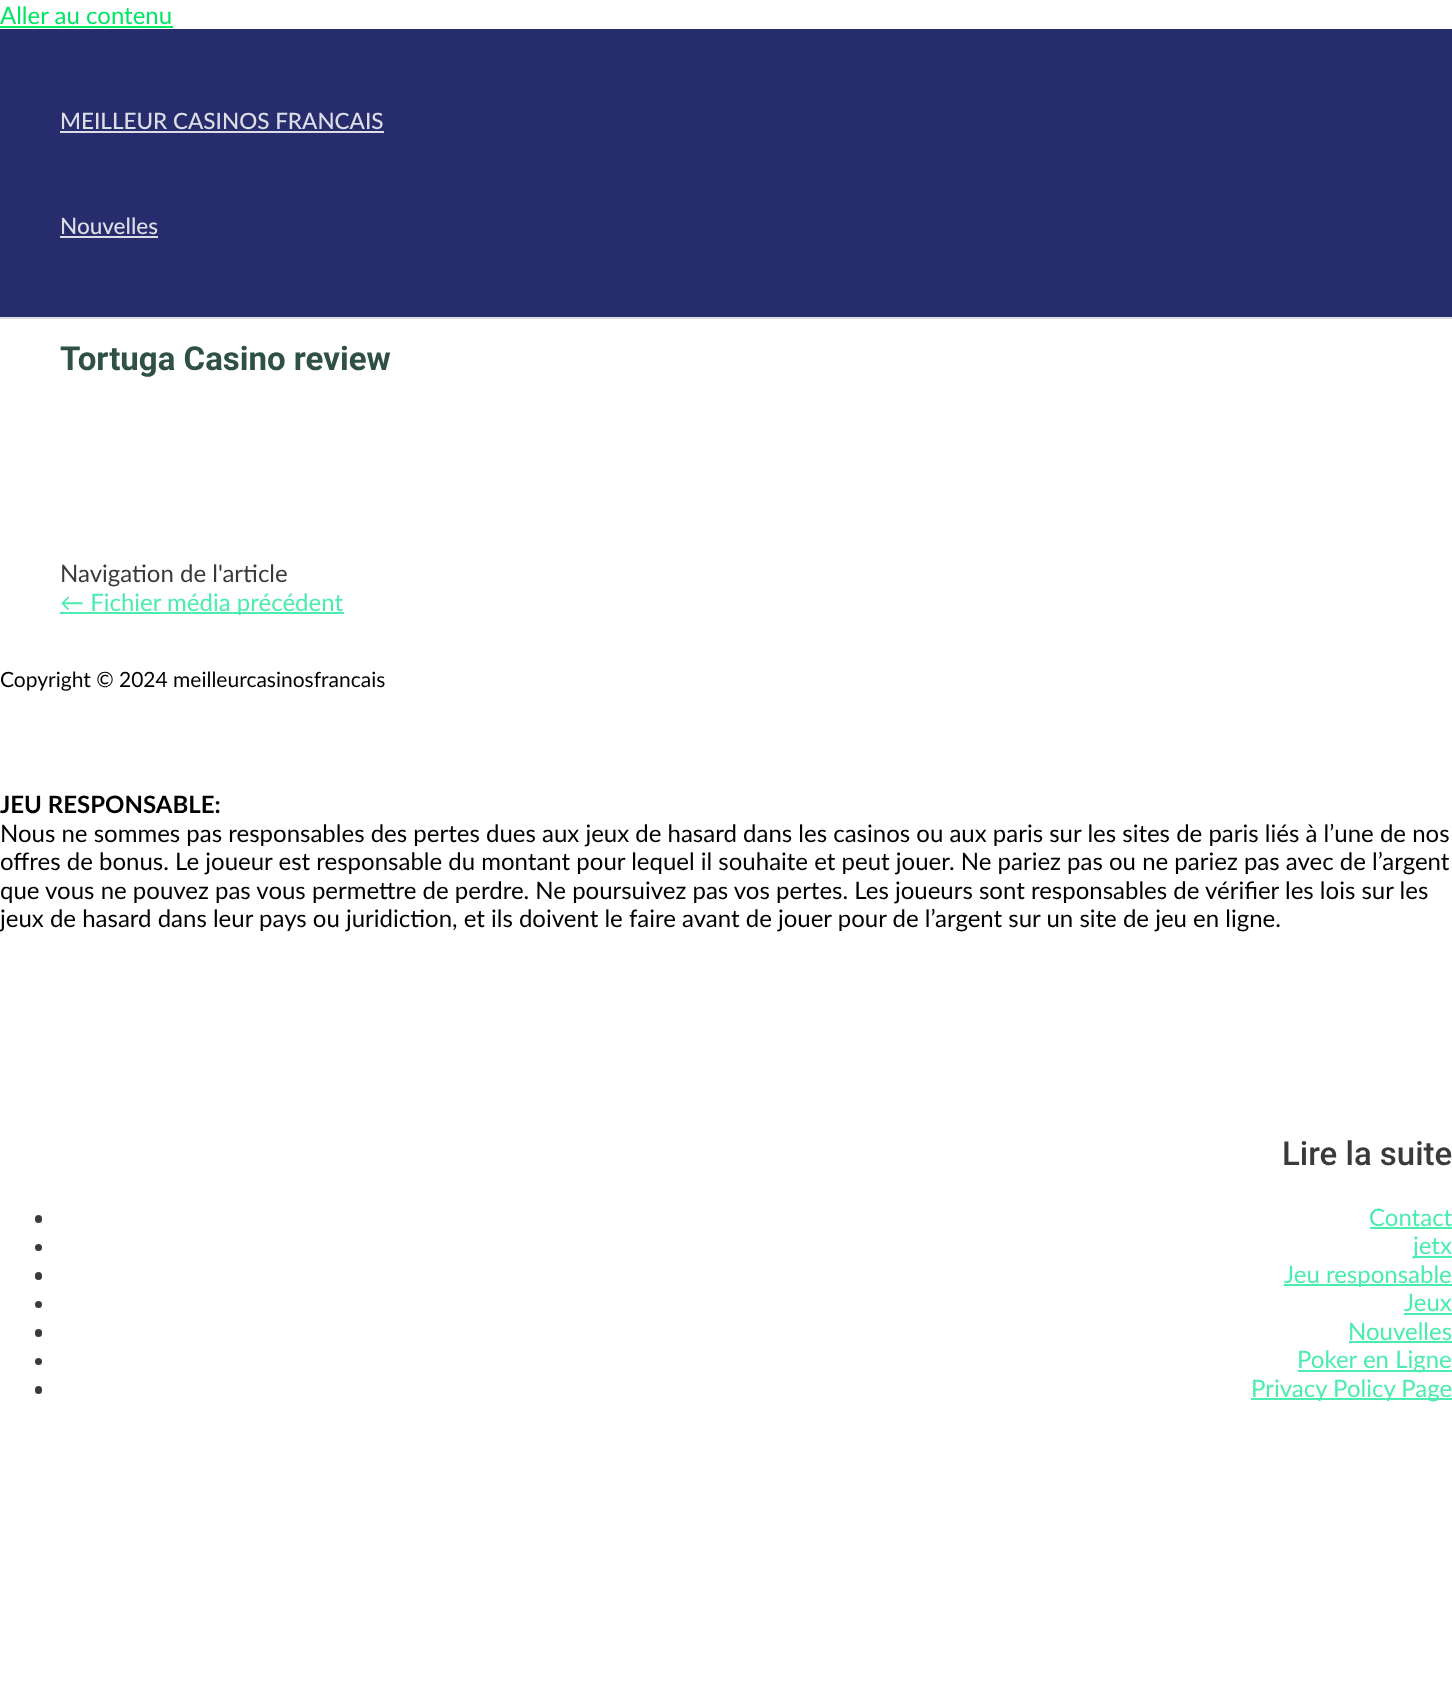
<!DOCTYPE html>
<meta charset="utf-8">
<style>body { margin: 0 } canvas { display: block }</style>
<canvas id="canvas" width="1452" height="1707"></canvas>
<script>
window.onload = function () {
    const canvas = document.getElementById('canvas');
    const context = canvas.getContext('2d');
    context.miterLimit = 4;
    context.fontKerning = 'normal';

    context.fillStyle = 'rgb(255, 255, 255)';
    context.fillRect(0, 0, 1452, 1707);
    context.fillStyle = 'rgb(0, 230, 99)';
    context.fillRect(0, 26, 173, 2);
    context.fillStyle = 'rgb(39, 44, 108)';
    context.fillRect(0, 29, 1452, 288);
    context.fillStyle = 'rgb(219, 222, 224)';
    context.fillRect(0, 317, 1452, 2);
    context.fillStyle = 'rgb(220, 221, 231)';
    context.fillRect(60, 131, 324, 2);
    context.fillRect(60, 236, 98, 2);
    context.fillStyle = 'rgb(75, 236, 175)';
    context.fillRect(60, 612, 284, 2);
    context.fillStyle = 'rgb(58, 58, 58)';
    context.beginPath();
    context.roundRect(35, 1215, 7, 8, 3.5);
    context.fill();
    context.fillStyle = 'rgb(75, 236, 175)';
    context.fillRect(1370, 1227, 82, 2);
    context.fillStyle = 'rgb(58, 58, 58)';
    context.beginPath();
    context.arc(38.5, 1247.5, 3.5, 0, 2 * Math.PI);
    context.fill();
    context.fillStyle = 'rgb(75, 236, 175)';
    context.fillRect(1413, 1256, 39, 2);
    context.fillStyle = 'rgb(58, 58, 58)';
    context.beginPath();
    context.roundRect(35, 1272, 7, 8, 3.5);
    context.fill();
    context.fillStyle = 'rgb(75, 236, 175)';
    context.fillRect(1284, 1284, 168, 2);
    context.fillStyle = 'rgb(58, 58, 58)';
    context.beginPath();
    context.arc(38.5, 1304.5, 3.5, 0, 2 * Math.PI);
    context.fill();
    context.fillStyle = 'rgb(75, 236, 175)';
    context.fillRect(1404, 1313, 48, 2);
    context.fillStyle = 'rgb(58, 58, 58)';
    context.beginPath();
    context.roundRect(35, 1329, 7, 8, 3.5);
    context.fill();
    context.fillStyle = 'rgb(75, 236, 175)';
    context.fillRect(1349, 1341, 103, 2);
    context.fillStyle = 'rgb(58, 58, 58)';
    context.beginPath();
    context.arc(38.5, 1361.5, 3.5, 0, 2 * Math.PI);
    context.fill();
    context.fillStyle = 'rgb(75, 236, 175)';
    context.fillRect(1298, 1370, 154, 2);
    context.fillStyle = 'rgb(58, 58, 58)';
    context.beginPath();
    context.roundRect(35, 1386, 7, 8, 3.5);
    context.fill();
    context.fillStyle = 'rgb(75, 236, 175)';
    context.fillRect(1251, 1398, 201, 2);
    context.font = '24px Lato';
    context.fillStyle = 'rgb(0, 230, 99)';
    context.fillText('Aller au contenu', 0, 24);
    context.font = '500 22.5px Lato';
    context.fillStyle = 'rgb(220, 221, 231)';
    context.fillText('MEILLEUR CASINOS FRANCAIS', 60, 129);
    context.fillText('Nouvelles', 60, 234);
    context.font = 'bold 33px Roboto';
    context.fillStyle = 'rgb(47, 80, 69)';
    context.fillText('Tortuga Casino review', 60, 370);
    context.font = '24px Lato';
    context.fillStyle = 'rgb(58, 58, 58)';
    context.fillText('Navigation de l\'article', 60, 582);
    context.fillStyle = 'rgb(75, 236, 175)';
    context.fillText('← Fichier média précédent', 60, 611);
    context.font = '21px Lato';
    context.fillStyle = 'rgb(0, 0, 0)';
    context.fillText('Copyright © 2024 meilleurcasinosfrancais', 0, 687);
    context.font = 'bold 24px Lato';
    context.fillText('JEU RESPONSABLE:', 0, 813);
    context.font = '24px Lato';
    context.fillText('Nous ne sommes pas responsables des pertes dues aux jeux de hasard dans les casinos ou aux paris sur les sites de paris liés à l’une de nos', 0, 842);
    context.fillText('offres de bonus. Le joueur est responsable du montant pour lequel il souhaite et peut jouer. Ne pariez pas ou ne pariez pas avec de l’argent', 0, 870);
    context.fillText('que vous ne pouvez pas vous permettre de perdre. Ne poursuivez pas vos pertes. Les joueurs sont responsables de vérifier les lois sur les', 0, 899);
    context.fillText('jeux de hasard dans leur pays ou juridiction, et ils doivent le faire avant de jouer pour de l’argent sur un site de jeu en ligne.', 0, 927);
    context.font = '500 33px Roboto';
    context.fillStyle = 'rgb(58, 58, 58)';
    context.fillText('Lire la suite', 1282, 1165);
    context.font = '24px Lato';
    context.fillStyle = 'rgb(75, 236, 175)';
    context.fillText('Contact', 1369, 1226);
    context.fillText('jetx', 1413, 1254);
    context.fillText('Jeu responsable', 1284, 1283);
    context.fillText('Jeux', 1404, 1311);
    context.fillText('Nouvelles', 1348, 1340);
    context.fillText('Poker en Ligne', 1297, 1368);
    context.fillText('Privacy Policy Page', 1251, 1397);
};
</script>
